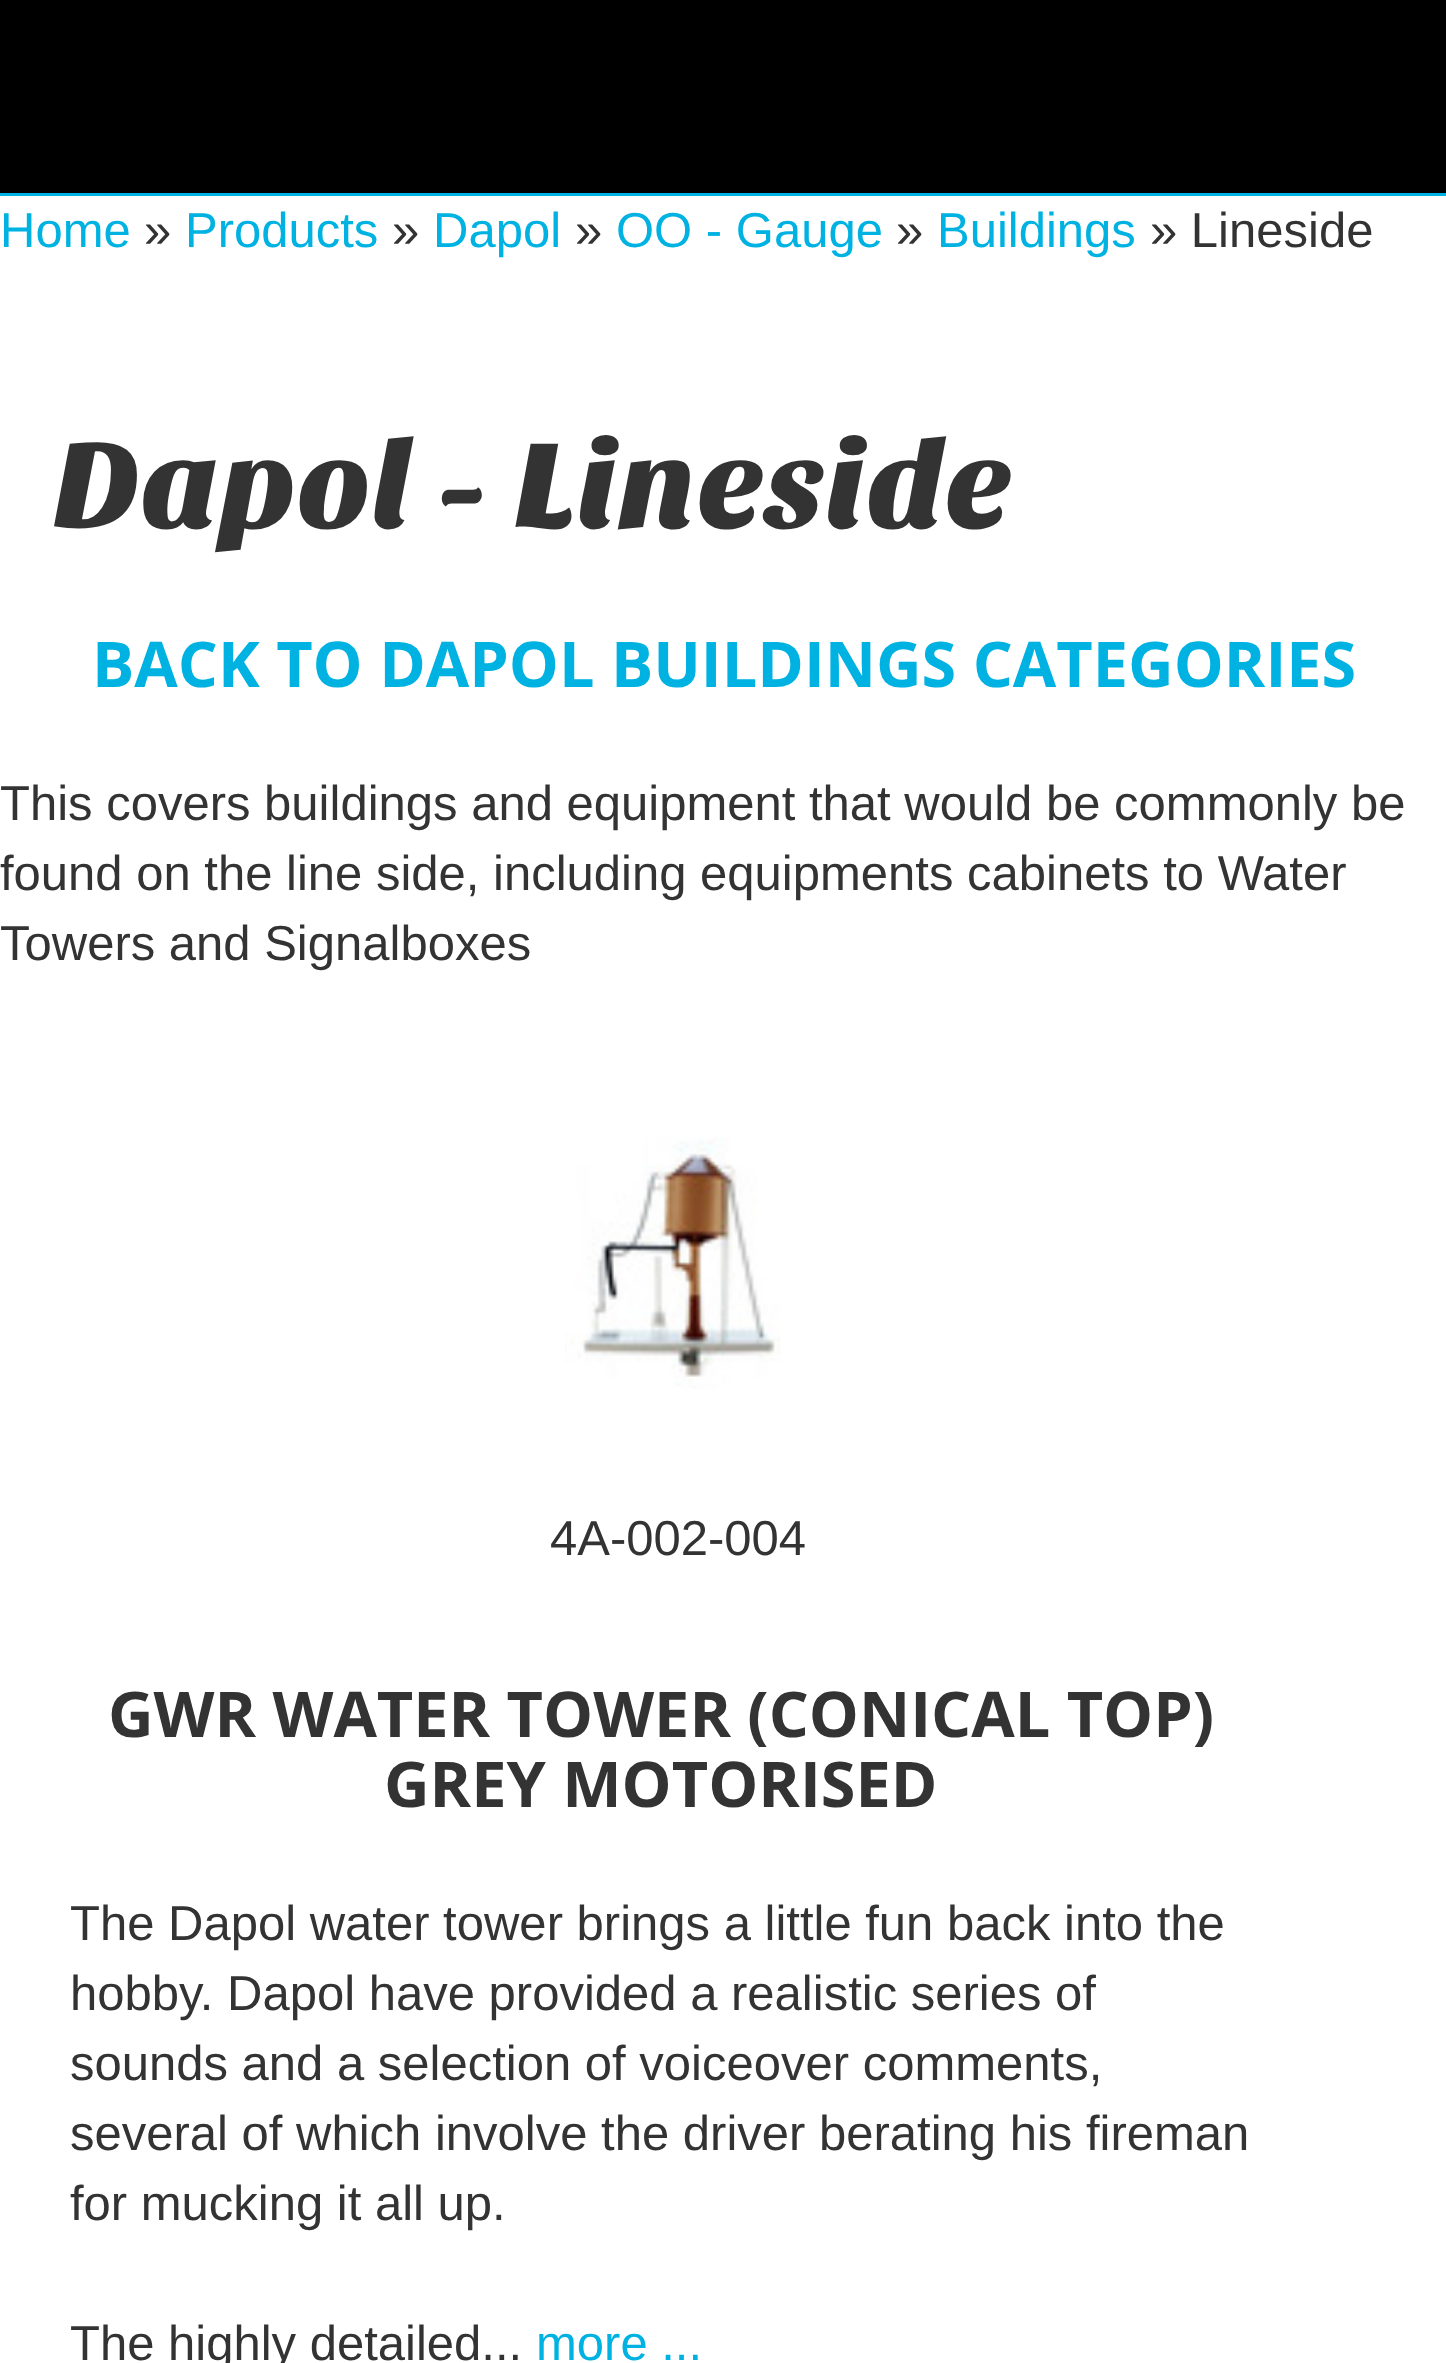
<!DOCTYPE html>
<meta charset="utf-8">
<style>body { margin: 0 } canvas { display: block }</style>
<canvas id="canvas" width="1446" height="2363"></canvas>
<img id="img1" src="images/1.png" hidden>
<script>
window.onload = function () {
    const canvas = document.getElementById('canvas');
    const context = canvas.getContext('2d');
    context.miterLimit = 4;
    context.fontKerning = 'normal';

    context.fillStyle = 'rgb(0, 178, 226)';
    context.fillRect(0, 0, 1446, 2363);
    context.fillStyle = 'rgb(0, 0, 0)';
    context.fillRect(0, 0, 1446, 193);
    context.fillStyle = 'rgb(255, 255, 255)';
    context.fillRect(0, 196, 1446, 2167);
    context.drawImage(document.getElementById('img1'), 565, 1137, 216, 252);
    context.font = '49px Liberation Sans';
    context.fillStyle = 'rgb(0, 178, 226)';
    context.fillText('Home', 0, 247);
    context.fillStyle = 'rgb(51, 51, 51)';
    context.fillText('»', 144, 247);
    context.fillStyle = 'rgb(0, 178, 226)';
    context.fillText('Products', 185, 247);
    context.fillStyle = 'rgb(51, 51, 51)';
    context.fillText('»', 392, 247);
    context.fillStyle = 'rgb(0, 178, 226)';
    context.fillText('Dapol', 433, 247);
    context.fillStyle = 'rgb(51, 51, 51)';
    context.fillText('»', 575, 247);
    context.fillStyle = 'rgb(0, 178, 226)';
    context.fillText('OO - Gauge', 616, 247);
    context.fillStyle = 'rgb(51, 51, 51)';
    context.fillText('»', 896, 247);
    context.fillStyle = 'rgb(0, 178, 226)';
    context.fillText('Buildings', 937, 247);
    context.fillStyle = 'rgb(51, 51, 51)';
    context.fillText('» Lineside', 1150, 247);
    context.font = '126px Sansita One';
    context.fillText('Dapol - Lineside', 53, 527);
    context.font = 'bold 63px Open Sans';
    context.fillStyle = 'rgb(0, 178, 226)';
    context.fillText('BACK TO DAPOL BUILDINGS CATEGORIES', 92, 687);
    context.font = '49px Liberation Sans';
    context.fillStyle = 'rgb(51, 51, 51)';
    context.fillText('This covers buildings and equipment that would be commonly be', 0, 820);
    context.fillText('found on the line side, including equipments cabinets to Water', 0, 890);
    context.fillText('Towers and Signalboxes', 0, 960);
    context.fillText('4A-002-004', 550, 1555);
    context.font = 'bold 63px Open Sans';
    context.fillText('GWR WATER TOWER (CONICAL TOP)', 108, 1737);
    context.fillText('GREY MOTORISED', 384, 1807);
    context.font = '49px Liberation Sans';
    context.fillText('The Dapol water tower brings a little fun back into the', 70, 1940);
    context.fillText('hobby. Dapol have provided a realistic series of', 70, 2010);
    context.fillText('sounds and a selection of voiceover comments,', 70, 2080);
    context.fillText('several of which involve the driver berating his fireman', 70, 2150);
    context.fillText('for mucking it all up.', 70, 2220);
    context.fillText('The highly detailed...', 70, 2360);
    context.fillStyle = 'rgb(0, 178, 226)';
    context.fillText('more ...', 536, 2360);
};
</script>
